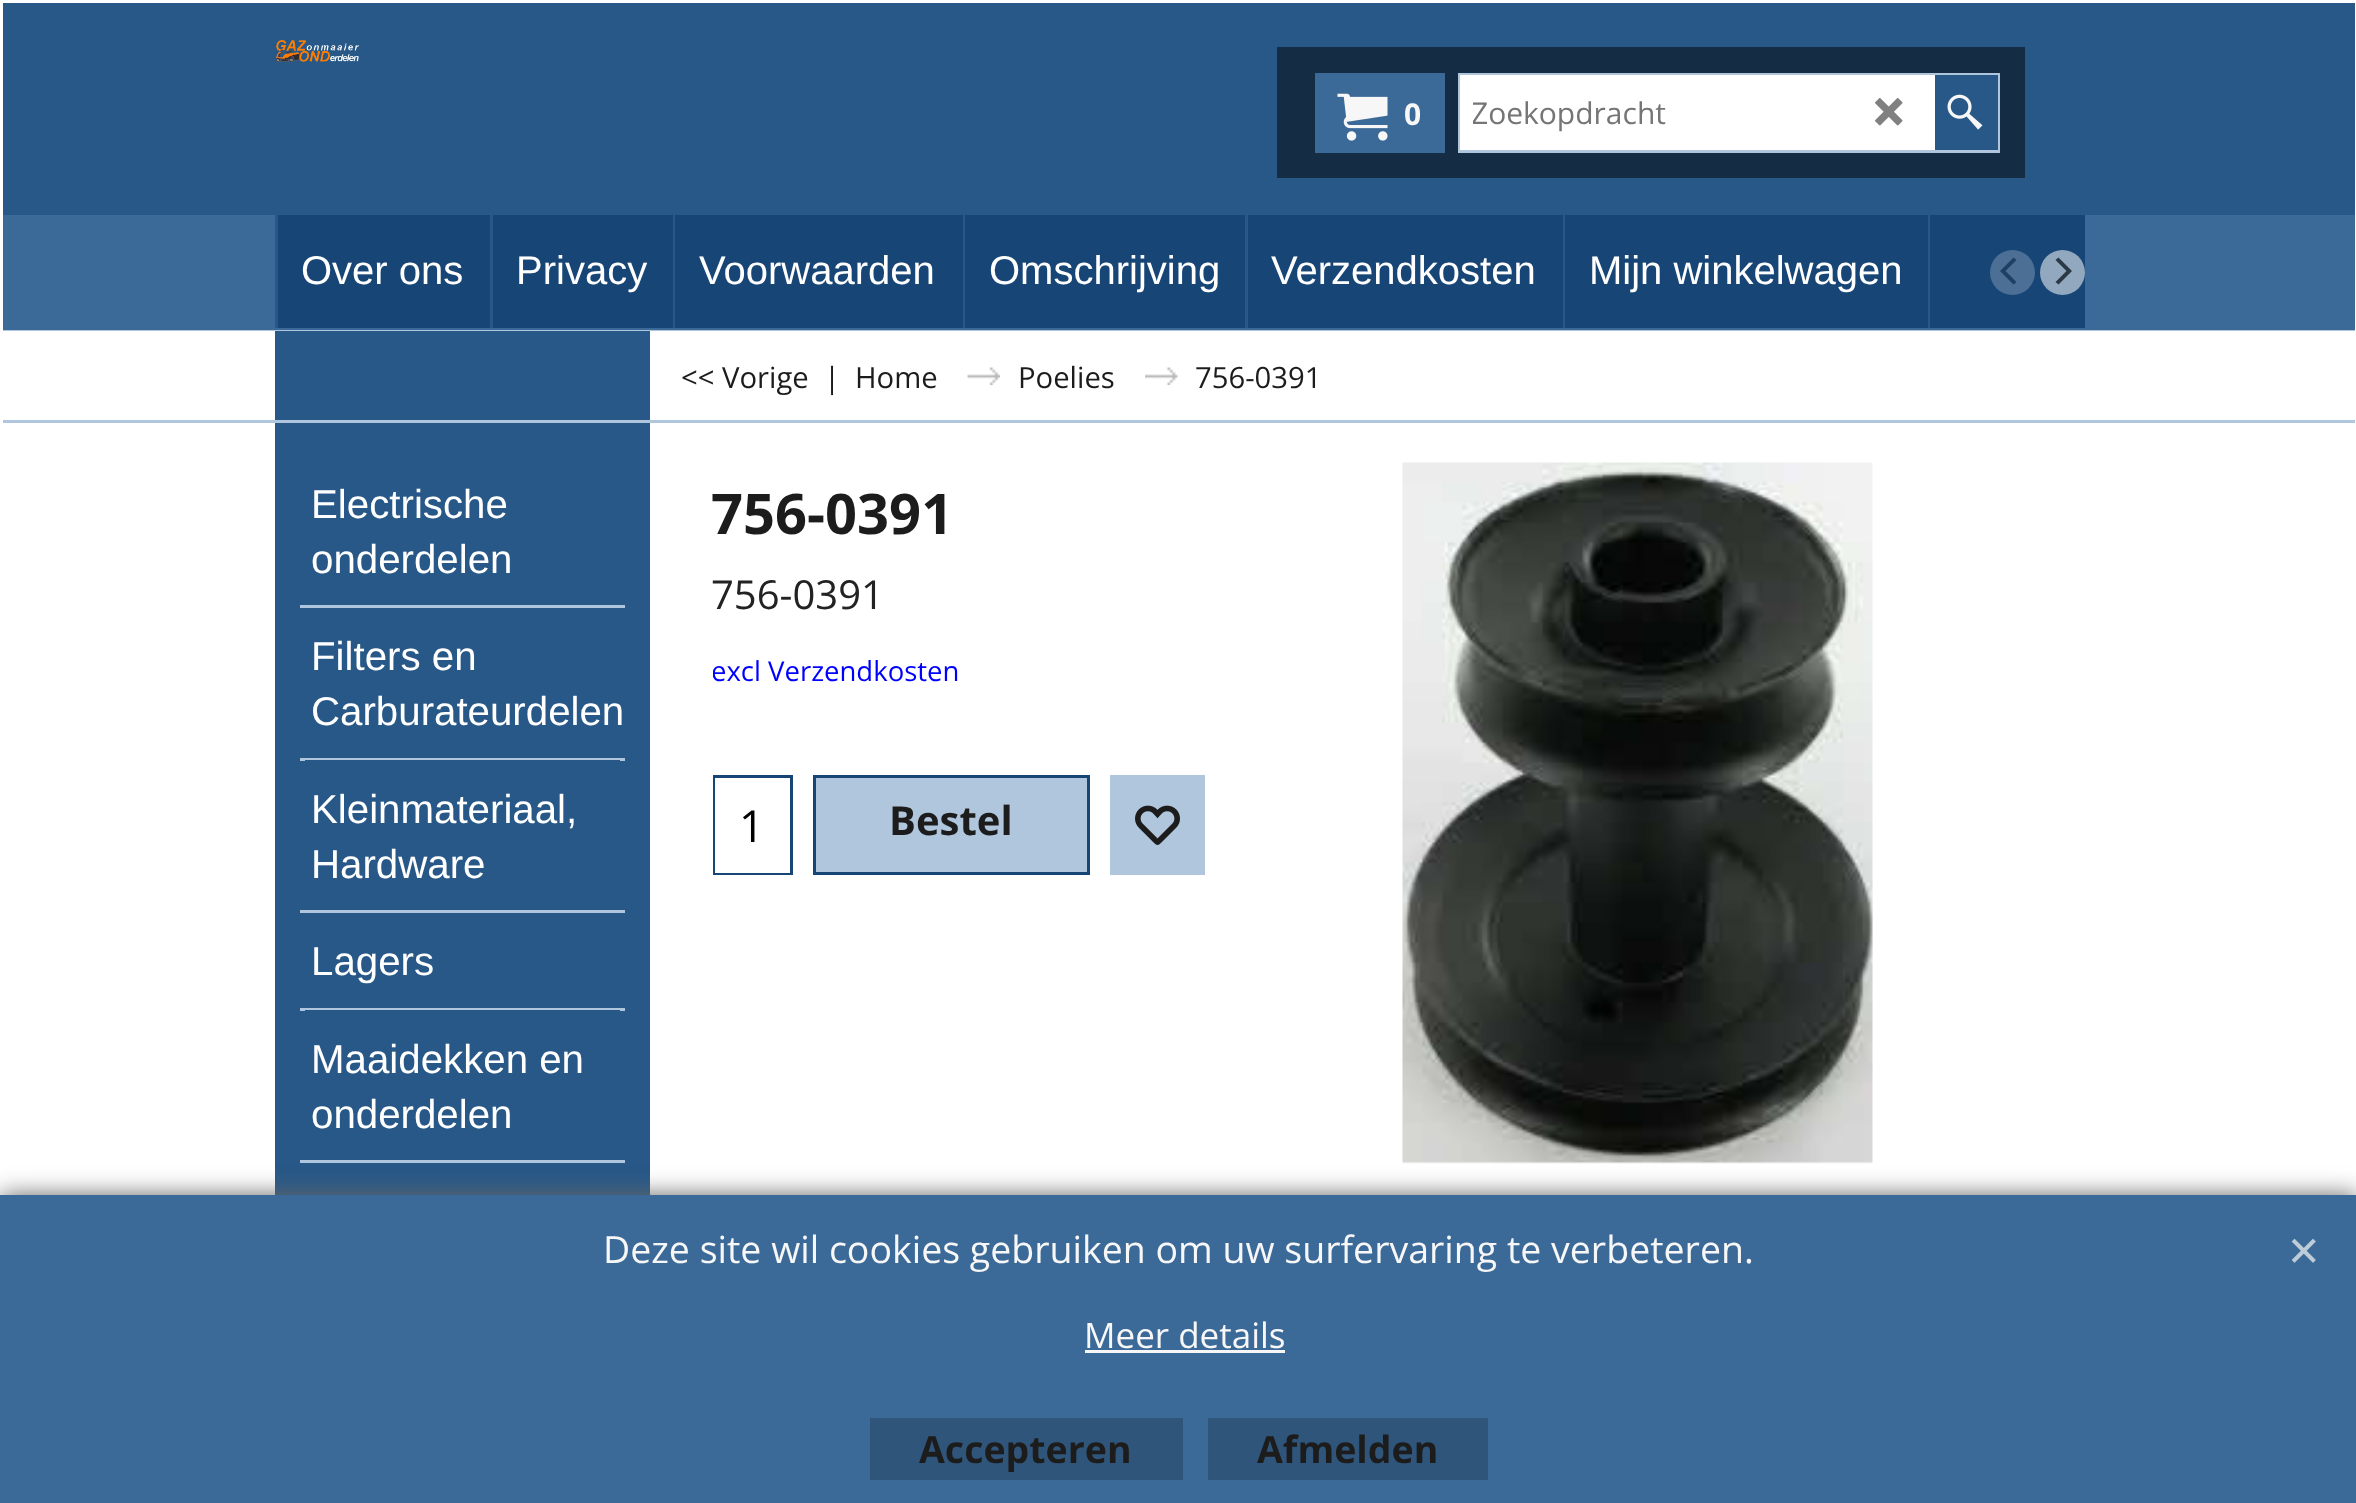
<!DOCTYPE html>
<meta charset="utf-8">
<style>body { margin: 0 } canvas { display: block }</style>
<canvas id="canvas" width="2356" height="1503"></canvas>
<img id="img1" src="images/1.png" hidden>
<img id="img2" src="images/2.png" hidden>
<img id="img3" src="images/3.png" hidden>
<img id="img4" src="images/4.png" hidden>
<img id="img5" src="images/5.png" hidden>
<img id="img6" src="images/6.png" hidden>
<img id="img7" src="images/7.png" hidden>
<img id="img8" src="images/8.png" hidden>
<img id="img9" src="images/9.png" hidden>
<script>
window.onload = function () {
    const canvas = document.getElementById('canvas');
    const context = canvas.getContext('2d');
    context.miterLimit = 4;
    context.fontKerning = 'normal';

    context.fillStyle = 'rgb(255, 255, 255)';
    context.fillRect(0, 0, 2356, 1503);
    context.fillStyle = 'rgb(40, 88, 135)';
    context.fillRect(3, 3, 2352, 212);
    context.drawImage(document.getElementById('img1'), 275, 40, 84, 23);
    context.fillStyle = 'rgb(20, 44, 68)';
    context.fillRect(1277, 47, 748, 131);
    context.fillStyle = 'rgb(60, 106, 152)';
    context.fillRect(1315, 73, 130, 80);
    context.drawImage(document.getElementById('img2'), 1337, 93, 51, 48);
    context.fillStyle = 'rgb(176, 198, 220)';
    context.fillRect(1458, 73, 542, 80);
    context.fillStyle = 'rgb(255, 255, 255)';
    context.fillRect(1460, 75, 475, 75);
    context.drawImage(document.getElementById('img3'), 1875, 98, 28, 28);
    context.fillStyle = 'rgb(40, 88, 135)';
    context.fillRect(1935, 75, 63, 75);
    context.drawImage(document.getElementById('img4'), 1947, 94, 36, 36);
    context.fillRect(275, 331, 375, 864);
    context.save();
    context.beginPath();
    context.rect(3, 3, 2352, 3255);
    context.clip();
    context.strokeStyle = 'rgb(176, 198, 220)';
    context.lineWidth = 3;
    context.strokeRect(-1.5, 329.5, 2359, 92);
    context.restore();
    context.fillStyle = 'rgb(60, 106, 152)';
    context.fillRect(3, 215, 2352, 115);
    context.fillStyle = 'rgb(23, 70, 118)';
    context.fillRect(278, 215, 1807, 113);
    context.fillStyle = 'rgb(40, 88, 135)';
    context.fillRect(275, 215, 3, 113);
    context.fillRect(490, 215, 3, 113);
    context.fillRect(673, 215, 2, 113);
    context.fillRect(963, 215, 2, 113);
    context.fillRect(1245, 215, 3, 113);
    context.fillRect(1563, 215, 2, 113);
    context.fillRect(1928, 215, 2, 113);
    context.fillStyle = 'rgb(76, 112, 149)';
    context.beginPath();
    context.arc(2012.5, 272.5, 22.5, 0, 2 * Math.PI);
    context.fill();
    context.fillStyle = 'rgb(31, 64, 98)';
    context.beginPath();
    context.moveTo(2000, 271);
    context.lineTo(2013.5, 284.5);
    context.lineTo(2016.5, 282);
    context.lineTo(2005.5, 271);
    context.lineTo(2016.5, 260);
    context.lineTo(2013.5, 257.5);
    context.closePath();
    context.fill();
    context.fillStyle = 'rgb(145, 168, 190)';
    context.beginPath();
    context.arc(2062.5, 272.5, 22.5, 0, 2 * Math.PI);
    context.fill();
    context.fillStyle = 'rgb(43, 57, 71)';
    context.beginPath();
    context.moveTo(2072, 271);
    context.lineTo(2058.5, 257.5);
    context.lineTo(2055.5, 260);
    context.lineTo(2066.5, 271);
    context.lineTo(2055.5, 282);
    context.lineTo(2058.5, 284.5);
    context.closePath();
    context.fill();
    context.fillStyle = 'rgb(176, 198, 220)';
    context.fillRect(300, 605, 325, 3);
    context.fillRect(300, 758, 325, 3);
    context.fillRect(300, 910, 325, 3);
    context.fillStyle = 'rgb(40, 88, 135)';
    context.fillRect(305, 760, 315, 1);
    context.fillStyle = 'rgb(176, 198, 220)';
    context.fillRect(300, 1008, 325, 3);
    context.fillRect(300, 1160, 325, 3);
    context.fillStyle = 'rgb(40, 88, 135)';
    context.fillRect(305, 1010, 315, 1);
    context.drawImage(document.getElementById('img5'), 967, 367, 33, 18);
    context.drawImage(document.getElementById('img6'), 1145, 367, 33, 18);
    context.strokeStyle = 'rgb(23, 70, 118)';
    context.lineWidth = 3;
    context.strokeRect(714.5, 776.5, 77, 97);
    context.fillStyle = 'rgb(255, 255, 255)';
    context.fillRect(715, 778, 75, 95);
    context.fillStyle = 'rgb(176, 198, 220)';
    context.beginPath();
    context.rect(814.5, 776.5, 274, 97);
    context.fill();
    context.stroke();
    context.fillRect(1110, 775, 95, 100);
    context.drawImage(document.getElementById('img7'), 1135, 805, 45, 40);
    context.drawImage(document.getElementById('img8'), 1402, 462, 471, 702);
    context.fillStyle = 'rgb(102, 102, 102)';
    context.filter = 'blur(12.5px)';
    context.beginPath();
    context.rect(0, 1195, 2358, 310);
    context.fill();
    context.filter = 'none';
    context.fillStyle = 'rgb(60, 106, 152)';
    context.fillRect(0, 1195, 2356, 308);
    context.fillStyle = 'rgb(247, 247, 247)';
    context.fillRect(1085, 1350, 200, 3);
    context.drawImage(document.getElementById('img9'), 2291, 1238, 25, 25);
    context.fillStyle = 'rgb(48, 85, 122)';
    context.fillRect(870, 1418, 313, 62);
    context.fillRect(1208, 1418, 280, 62);
    context.font = 'bold 30px Open Sans';
    context.fillStyle = 'rgb(247, 247, 247)';
    context.fillText('0', 1404, 125);
    context.save();
    context.beginPath();
    context.rect(1473, 93, 400, 42);
    context.clip();
    context.font = '30px Open Sans';
    context.fillStyle = 'rgb(117, 117, 117)';
    context.fillText('Zoekopdracht', 1471, 124);
    context.restore();
    context.font = '40px Liberation Sans';
    context.fillStyle = 'rgb(255, 255, 255)';
    context.fillText('Over ons', 301, 284);
    context.fillText('Privacy', 516, 284);
    context.fillText('Voorwaarden', 699, 284);
    context.fillText('Omschrijving', 989, 284);
    context.fillText('Verzendkosten', 1271, 284);
    context.fillText('Mijn winkelwagen', 1589, 284);
    context.font = '40.25px Liberation Sans';
    context.fillText('Electrische', 311, 518);
    context.fillText('onderdelen', 311, 573);
    context.fillText('Filters en', 311, 670);
    context.fillText('Carburateurdelen', 311, 725);
    context.fillText('Kleinmateriaal,', 311, 823);
    context.fillText('Hardware', 311, 878);
    context.fillText('Lagers', 311, 975);
    context.fillText('Maaidekken en', 311, 1073);
    context.fillText('onderdelen', 311, 1128);
    context.font = '29.25px Open Sans';
    context.fillStyle = 'rgb(28, 28, 28)';
    context.fillText('<< Vorige', 681, 388);
    context.fillText('|', 824, 388);
    context.fillText('Home', 855, 388);
    context.fillText('Poelies', 1018, 388);
    context.fillText('756-0391', 1195, 388);
    context.font = 'bold 56px Open Sans';
    context.fillText('756-0391', 711, 534);
    context.font = '40px Open Sans';
    context.fillStyle = 'rgb(34, 34, 34)';
    context.fillText('756-0391', 711, 609);
    context.save();
    context.beginPath();
    context.rect(713, 650, 492, 43);
    context.clip();
    context.font = '27.5px Open Sans';
    context.fillStyle = 'rgb(0, 0, 255)';
    context.fillText('excl Verzendkosten', 711, 681);
    context.restore();
    context.font = '44px Open Sans';
    context.fillStyle = 'rgb(0, 0, 0)';
    context.fillText('1', 739, 842);
    context.font = 'bold 40px Open Sans';
    context.fillStyle = 'rgb(28, 28, 28)';
    context.fillText('Bestel', 889, 835);
    context.font = '37.5px Open Sans';
    context.fillStyle = 'rgb(247, 247, 247)';
    context.fillText('Deze site wil cookies gebruiken om uw surfervaring te verbeteren.', 603, 1263);
    context.font = '35px Open Sans';
    context.fillText('Meer details', 1084, 1348);
    context.font = 'bold 37.5px Open Sans';
    context.fillStyle = 'rgb(28, 28, 28)';
    context.fillText('Accepteren', 919, 1463);
    context.fillText('Afmelden', 1257, 1463);
};
</script>
